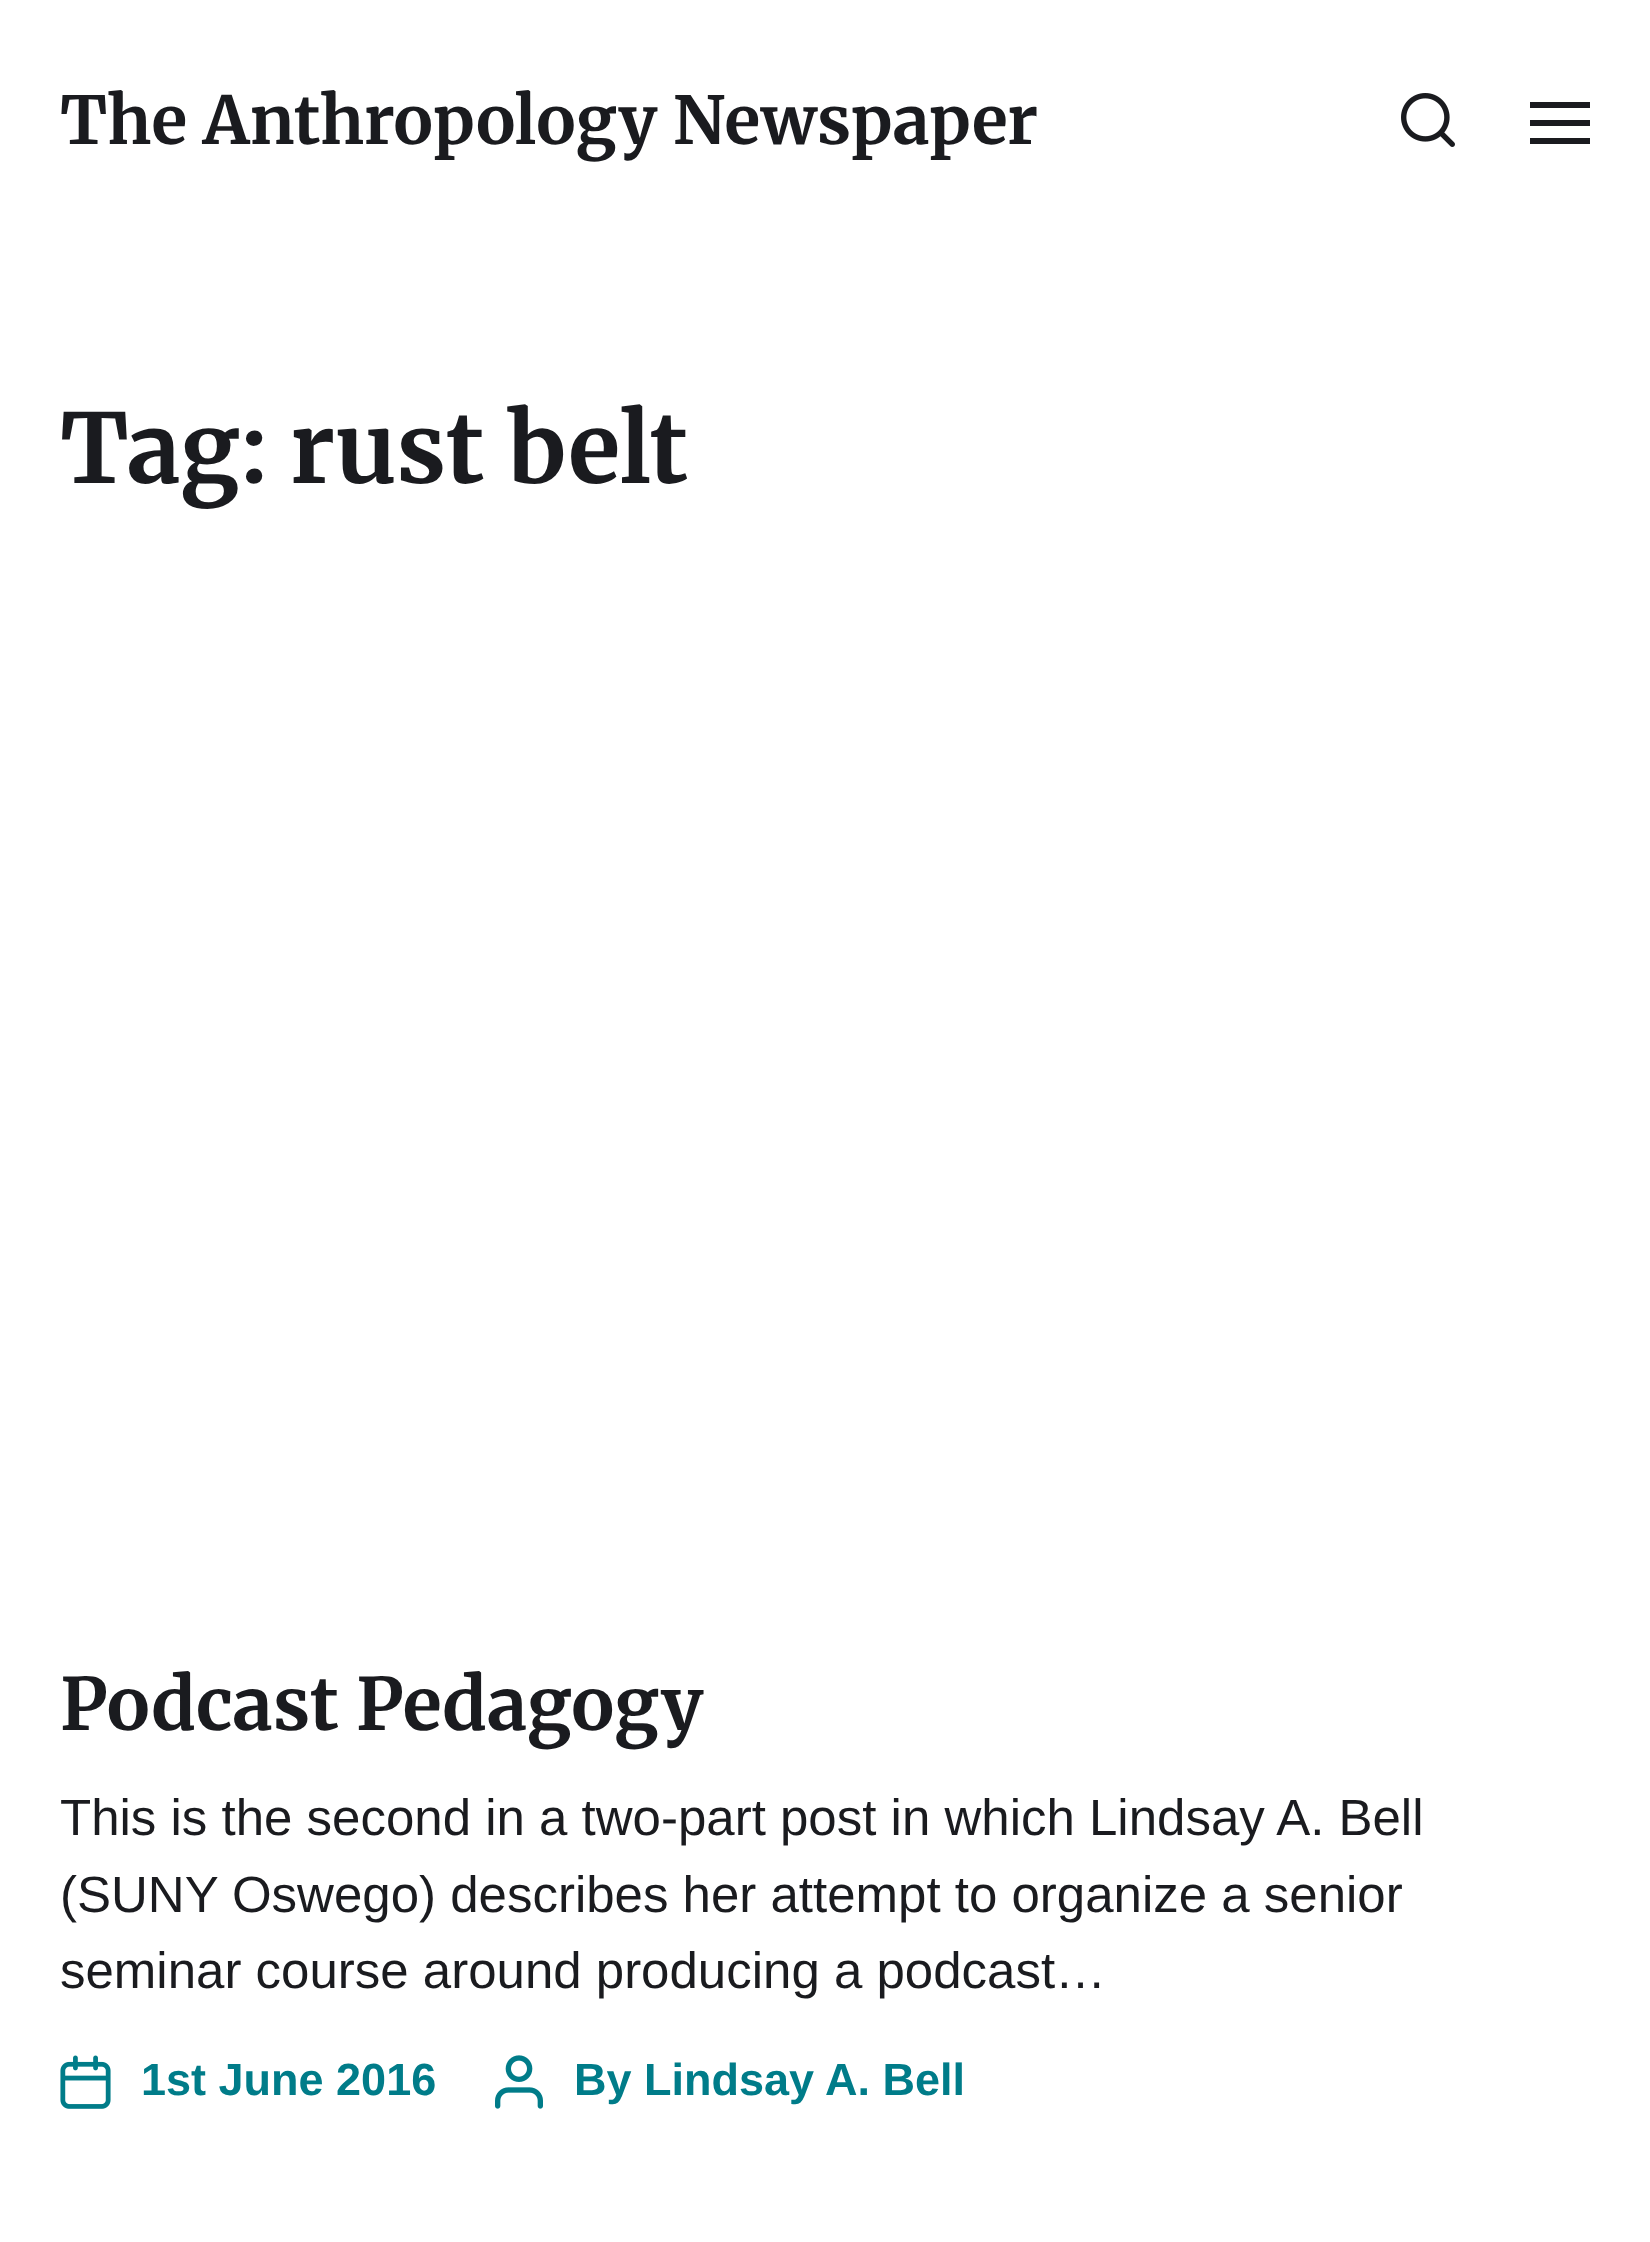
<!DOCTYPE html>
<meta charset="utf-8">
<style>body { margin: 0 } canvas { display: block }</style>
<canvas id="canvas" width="1650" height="2242"></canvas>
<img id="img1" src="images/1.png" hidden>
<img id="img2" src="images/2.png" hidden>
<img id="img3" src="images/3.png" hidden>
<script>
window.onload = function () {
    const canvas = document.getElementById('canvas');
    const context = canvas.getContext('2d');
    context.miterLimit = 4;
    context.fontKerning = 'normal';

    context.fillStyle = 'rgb(255, 255, 255)';
    context.fillRect(0, 0, 1650, 2242);
    context.drawImage(document.getElementById('img1'), 1401, 93, 54, 54);
    context.fillStyle = 'rgb(26, 27, 31)';
    context.fillRect(1530, 102, 60, 6);
    context.fillRect(1530, 120, 60, 6);
    context.fillRect(1530, 138, 60, 6);
    context.drawImage(document.getElementById('img2'), 60, 2055, 51, 54);
    context.drawImage(document.getElementById('img3'), 495, 2055, 48, 54);
    context.font = 'bold 66px Merriweather';
    context.fillText('The Anthropology Newspaper', 60, 144);
    context.font = 'bold 96px Merriweather';
    context.fillText('Tag: rust belt', 60, 483);
    context.font = 'bold 72px Merriweather';
    context.fillText('Podcast Pedagogy', 60, 1730);
    context.font = '51px Liberation Sans';
    context.fillText('This is the second in a two-part post in which Lindsay A. Bell', 60, 1835);
    context.fillText('(SUNY Oswego) describes her attempt to organize a senior', 60, 1912);
    context.fillText('seminar course around producing a podcast…', 60, 1988);
    context.font = 'bold 45px Liberation Sans';
    context.fillStyle = 'rgb(0, 124, 137)';
    context.fillText('1st June 2016', 141, 2095);
    context.fillText('By Lindsay A. Bell', 574, 2095);
};
</script>
